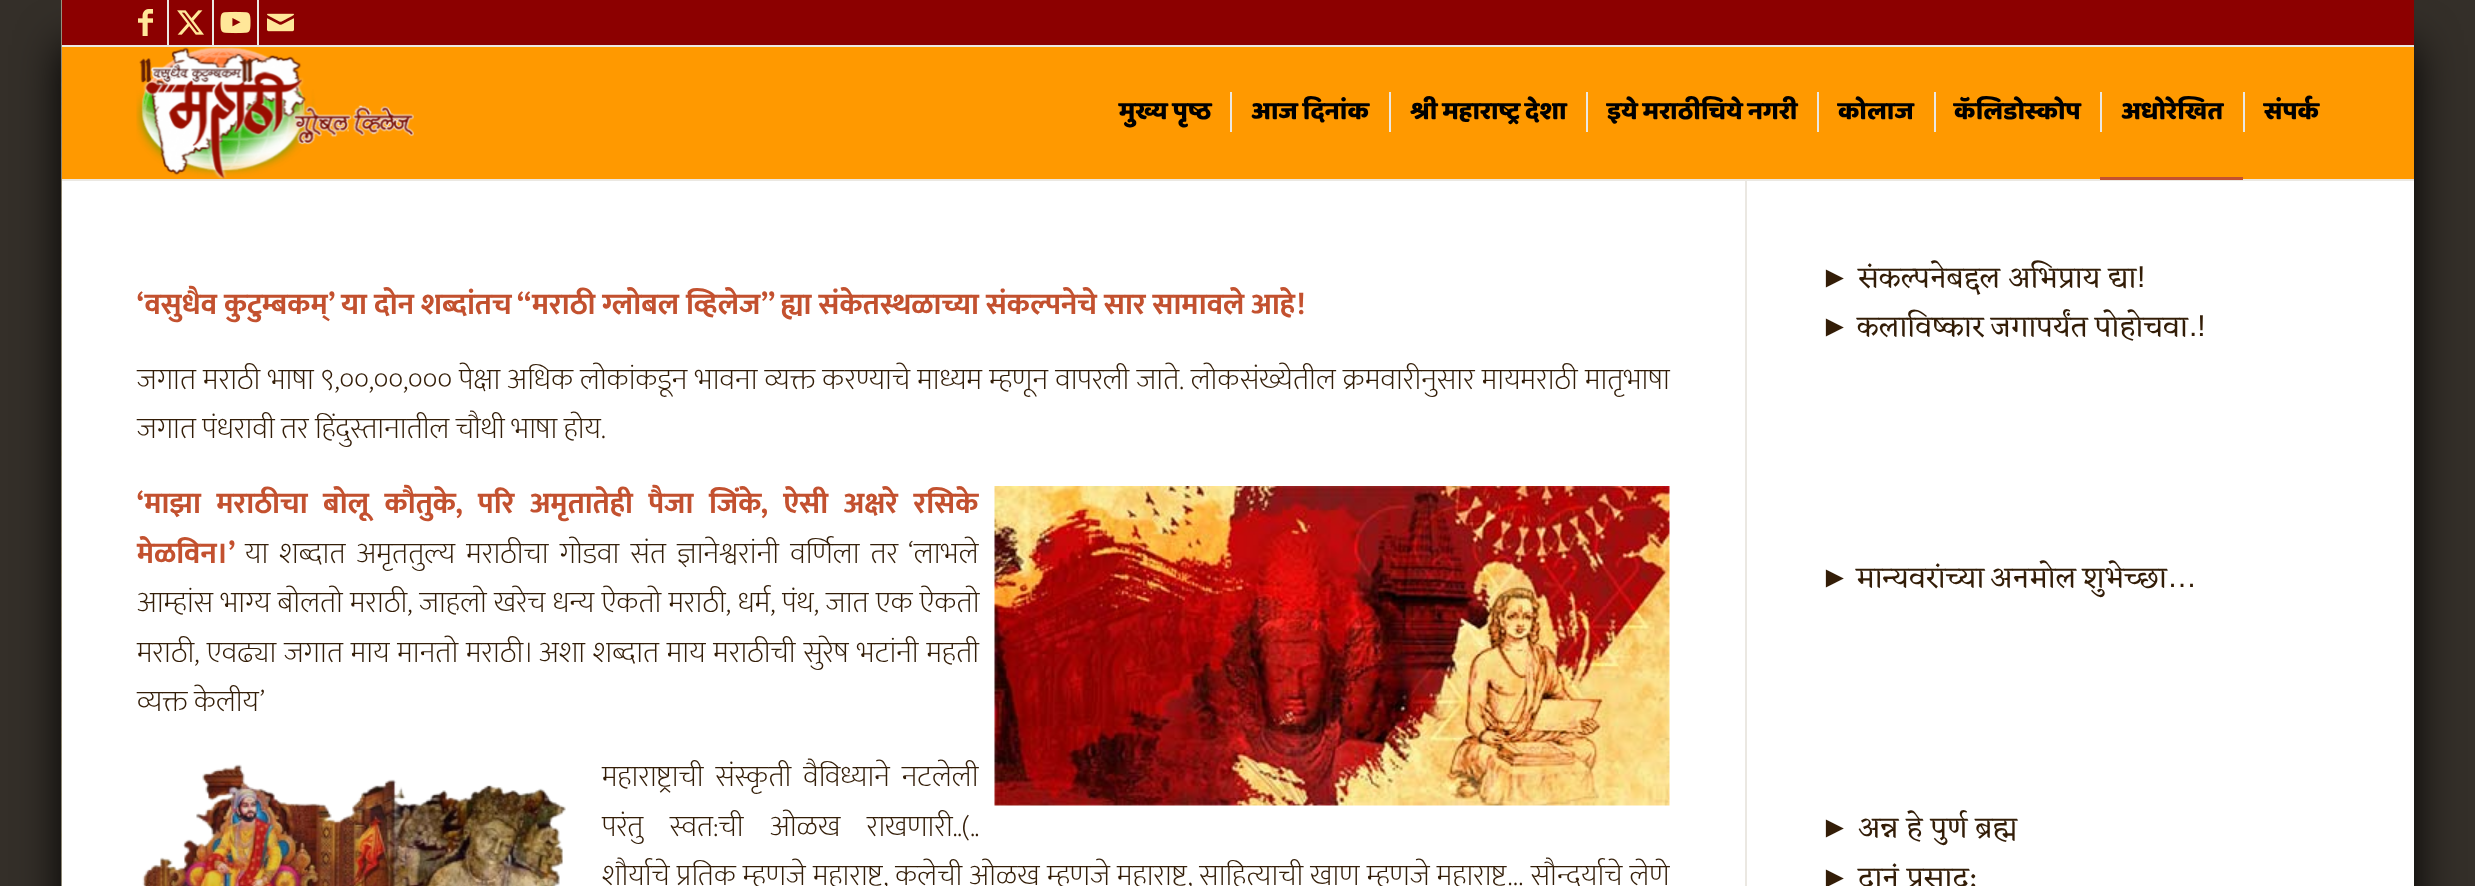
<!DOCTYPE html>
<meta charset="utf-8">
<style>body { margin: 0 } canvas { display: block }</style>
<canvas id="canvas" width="2475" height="886"></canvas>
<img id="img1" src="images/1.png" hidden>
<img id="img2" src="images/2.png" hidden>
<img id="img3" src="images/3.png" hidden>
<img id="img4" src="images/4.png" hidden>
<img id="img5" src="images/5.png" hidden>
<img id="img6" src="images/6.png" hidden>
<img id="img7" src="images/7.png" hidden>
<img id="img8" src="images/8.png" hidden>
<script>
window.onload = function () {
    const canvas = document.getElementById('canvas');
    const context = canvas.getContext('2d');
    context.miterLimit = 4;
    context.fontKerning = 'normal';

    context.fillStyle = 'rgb(52, 47, 41)';
    context.fillRect(0, 0, 2475, 886);
    context.fillStyle = 'rgb(0, 0, 0)';
    context.filter = 'blur(22.5px)';
    context.beginPath();
    context.rect(62, 45, 2352, 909);
    context.fill();
    context.filter = 'none';
    context.drawImage(document.getElementById('img1'), 61, 0, 1, 886);
    context.fillStyle = 'rgb(140, 0, 0)';
    context.fillRect(62, 0, 2352, 45);
    context.fillStyle = 'rgb(235, 232, 226)';
    context.fillRect(62, 45, 2352, 2);
    context.fillRect(167, 0, 2, 45);
    context.drawImage(document.getElementById('img2'), 138, 9, 15, 27);
    context.fillRect(212, 0, 2, 45);
    context.drawImage(document.getElementById('img3'), 177, 10, 27, 25);
    context.fillRect(257, 0, 2, 45);
    context.drawImage(document.getElementById('img4'), 220, 11, 31, 23);
    context.drawImage(document.getElementById('img5'), 267, 13, 27, 19);
    context.fillStyle = 'rgb(255, 153, 0)';
    context.fillRect(62, 47, 2352, 132);
    context.fillStyle = 'rgb(255, 255, 255)';
    context.fillRect(62, 181, 2352, 705);
    context.fillStyle = 'rgb(235, 232, 226)';
    context.fillRect(1745, 180, 2, 706);
    context.fillRect(62, 179, 2352, 2);
    context.drawImage(document.getElementById('img6'), 136, 47, 278, 132);
    context.fillRect(1230, 92, 2, 40);
    context.fillRect(1389, 92, 2, 40);
    context.fillRect(1586, 92, 2, 40);
    context.fillRect(1817, 92, 2, 40);
    context.fillRect(1934, 92, 2, 40);
    context.fillRect(2100, 92, 2, 40);
    context.fillStyle = 'rgb(195, 81, 47)';
    context.fillRect(2100, 177, 143, 3);
    context.fillStyle = 'rgb(235, 232, 226)';
    context.fillRect(2243, 92, 2, 40);
    context.drawImage(document.getElementById('img7'), 994, 486, 676, 320);
    context.drawImage(document.getElementById('img8'), 142, 764, 424, 122);
    context.font = '25.5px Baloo';
    context.fillStyle = 'rgb(0, 0, 0)';
    context.fillText('मुख्य पृष्ठ', 1119, 119);
    context.fillText('आज दिनांक', 1251, 119);
    context.fillText('श्री महाराष्ट्र देशा', 1410, 119);
    context.fillText('इये मराठीचिये नगरी', 1607, 119);
    context.fillText('कोलाज', 1838, 119);
    context.fillText('कॅलिडोस्कोप', 1954, 119);
    context.fillText('अधोरेखित', 2121, 119);
    context.fillText('संपर्क', 2264, 119);
    context.font = 'bold 30px Mukta';
    context.fillStyle = 'rgb(195, 81, 47)';
    context.fillText('‘वसुधैव कुटुम्बकम्’ या दोन शब्दांतच “मराठी ग्लोबल व्हिलेज” ह्या संकेतस्थळाच्या संकल्पनेचे सार सामावले आहे!', 137, 314);
    context.wordSpacing = '0.75px';
    context.font = '300 30px Mukta';
    context.fillStyle = 'rgb(51, 29, 7)';
    context.fillText('जगात मराठी भाषा ९,००,००,००० पेक्षा अधिक लोकांकडून भावना व्यक्त करण्याचे माध्यम म्हणून वापरली जाते. लोकसंख्येतील क्रमवारीनुसार मायमराठी मातृभाषा', 137, 389);
    context.wordSpacing = '0px';
    context.fillText('जगात पंधरावी तर हिंदुस्तानातील चौथी भाषा होय.', 137, 438);
    context.wordSpacing = '8.5px';
    context.font = 'bold 30px Mukta';
    context.fillStyle = 'rgb(195, 81, 47)';
    context.fillText('‘माझा मराठीचा बोलू कौतुके, परि अमृतातेही पैजा जिंके, ऐसी अक्षरे रसिके', 137, 513);
    context.wordSpacing = '0px';
    context.fillText('मेळविन।’', 137, 563);
    context.wordSpacing = '4.75px';
    context.font = '300 30px Mukta';
    context.fillStyle = 'rgb(51, 29, 7)';
    context.fillText('या शब्दात अमृततुल्य मराठीचा गोडवा संत ज्ञानेश्वरांनी वर्णिला तर ‘लाभले', 245, 563);
    context.wordSpacing = '0.75px';
    context.fillText('आम्हांस भाग्य बोलतो मराठी, जाहलो खरेच धन्य ऐकतो मराठी, धर्म, पंथ, जात एक ऐकतो', 137, 612);
    context.wordSpacing = '1.4px';
    context.fillText('मराठी, एवढ्या जगात माय मानतो मराठी। अशा शब्दात माय मराठीची सुरेष भटांनी महती', 137, 662);
    context.wordSpacing = '0px';
    context.fillText('व्यक्त केलीय’', 137, 711);
    context.wordSpacing = '5.5px';
    context.fillText('महाराष्ट्राची संस्कृती वैविध्याने नटलेली', 602, 786);
    context.wordSpacing = '20px';
    context.fillText('परंतु स्वत:ची ओळख राखणारी..(..', 602, 836);
    context.wordSpacing = '0.75px';
    context.fillText('शौर्याचे प्रतिक म्हणजे महाराष्ट्र, कलेची ओळख म्हणजे महाराष्ट्र, साहित्याची खाण म्हणजे महाराष्ट्र… सौन्दर्याचे लेणे', 602, 885);
    context.wordSpacing = '0px';
    context.font = '30px Liberation Sans';
    context.fillText('►', 1820, 287);
    context.font = '30px Eczar';
    context.fillText('संकल्पनेबद्दल अभिप्राय द्या', 1858, 287);
    context.font = '30px Liberation Sans';
    context.fillText('!', 2137, 287);
    context.fillText('►', 1820, 336);
    context.wordSpacing = '-1px';
    context.font = '30px Eczar';
    context.fillText('कलाविष्कार जगापर्यंत पोहोचवा', 1857, 336);
    context.wordSpacing = '0px';
    context.font = '30px Liberation Sans';
    context.fillText('.!', 2189, 336);
    context.fillText('►', 1820, 587);
    context.wordSpacing = '-2px';
    context.font = '30px Eczar';
    context.fillText('मान्यवरांच्या अनमोल शुभेच्छा', 1856, 587);
    context.wordSpacing = '0px';
    context.font = '30px Liberation Sans';
    context.fillText('…', 2167, 587);
    context.fillText('►', 1820, 837);
    context.font = '30px Eczar';
    context.fillText('अन्न हे पुर्ण ब्रह्म', 1858, 837);
    context.font = '30px Liberation Sans';
    context.fillText('►', 1820, 887);
    context.font = '30px Eczar';
    context.fillText('दानं प्रसाद:', 1858, 887);
};
</script>
